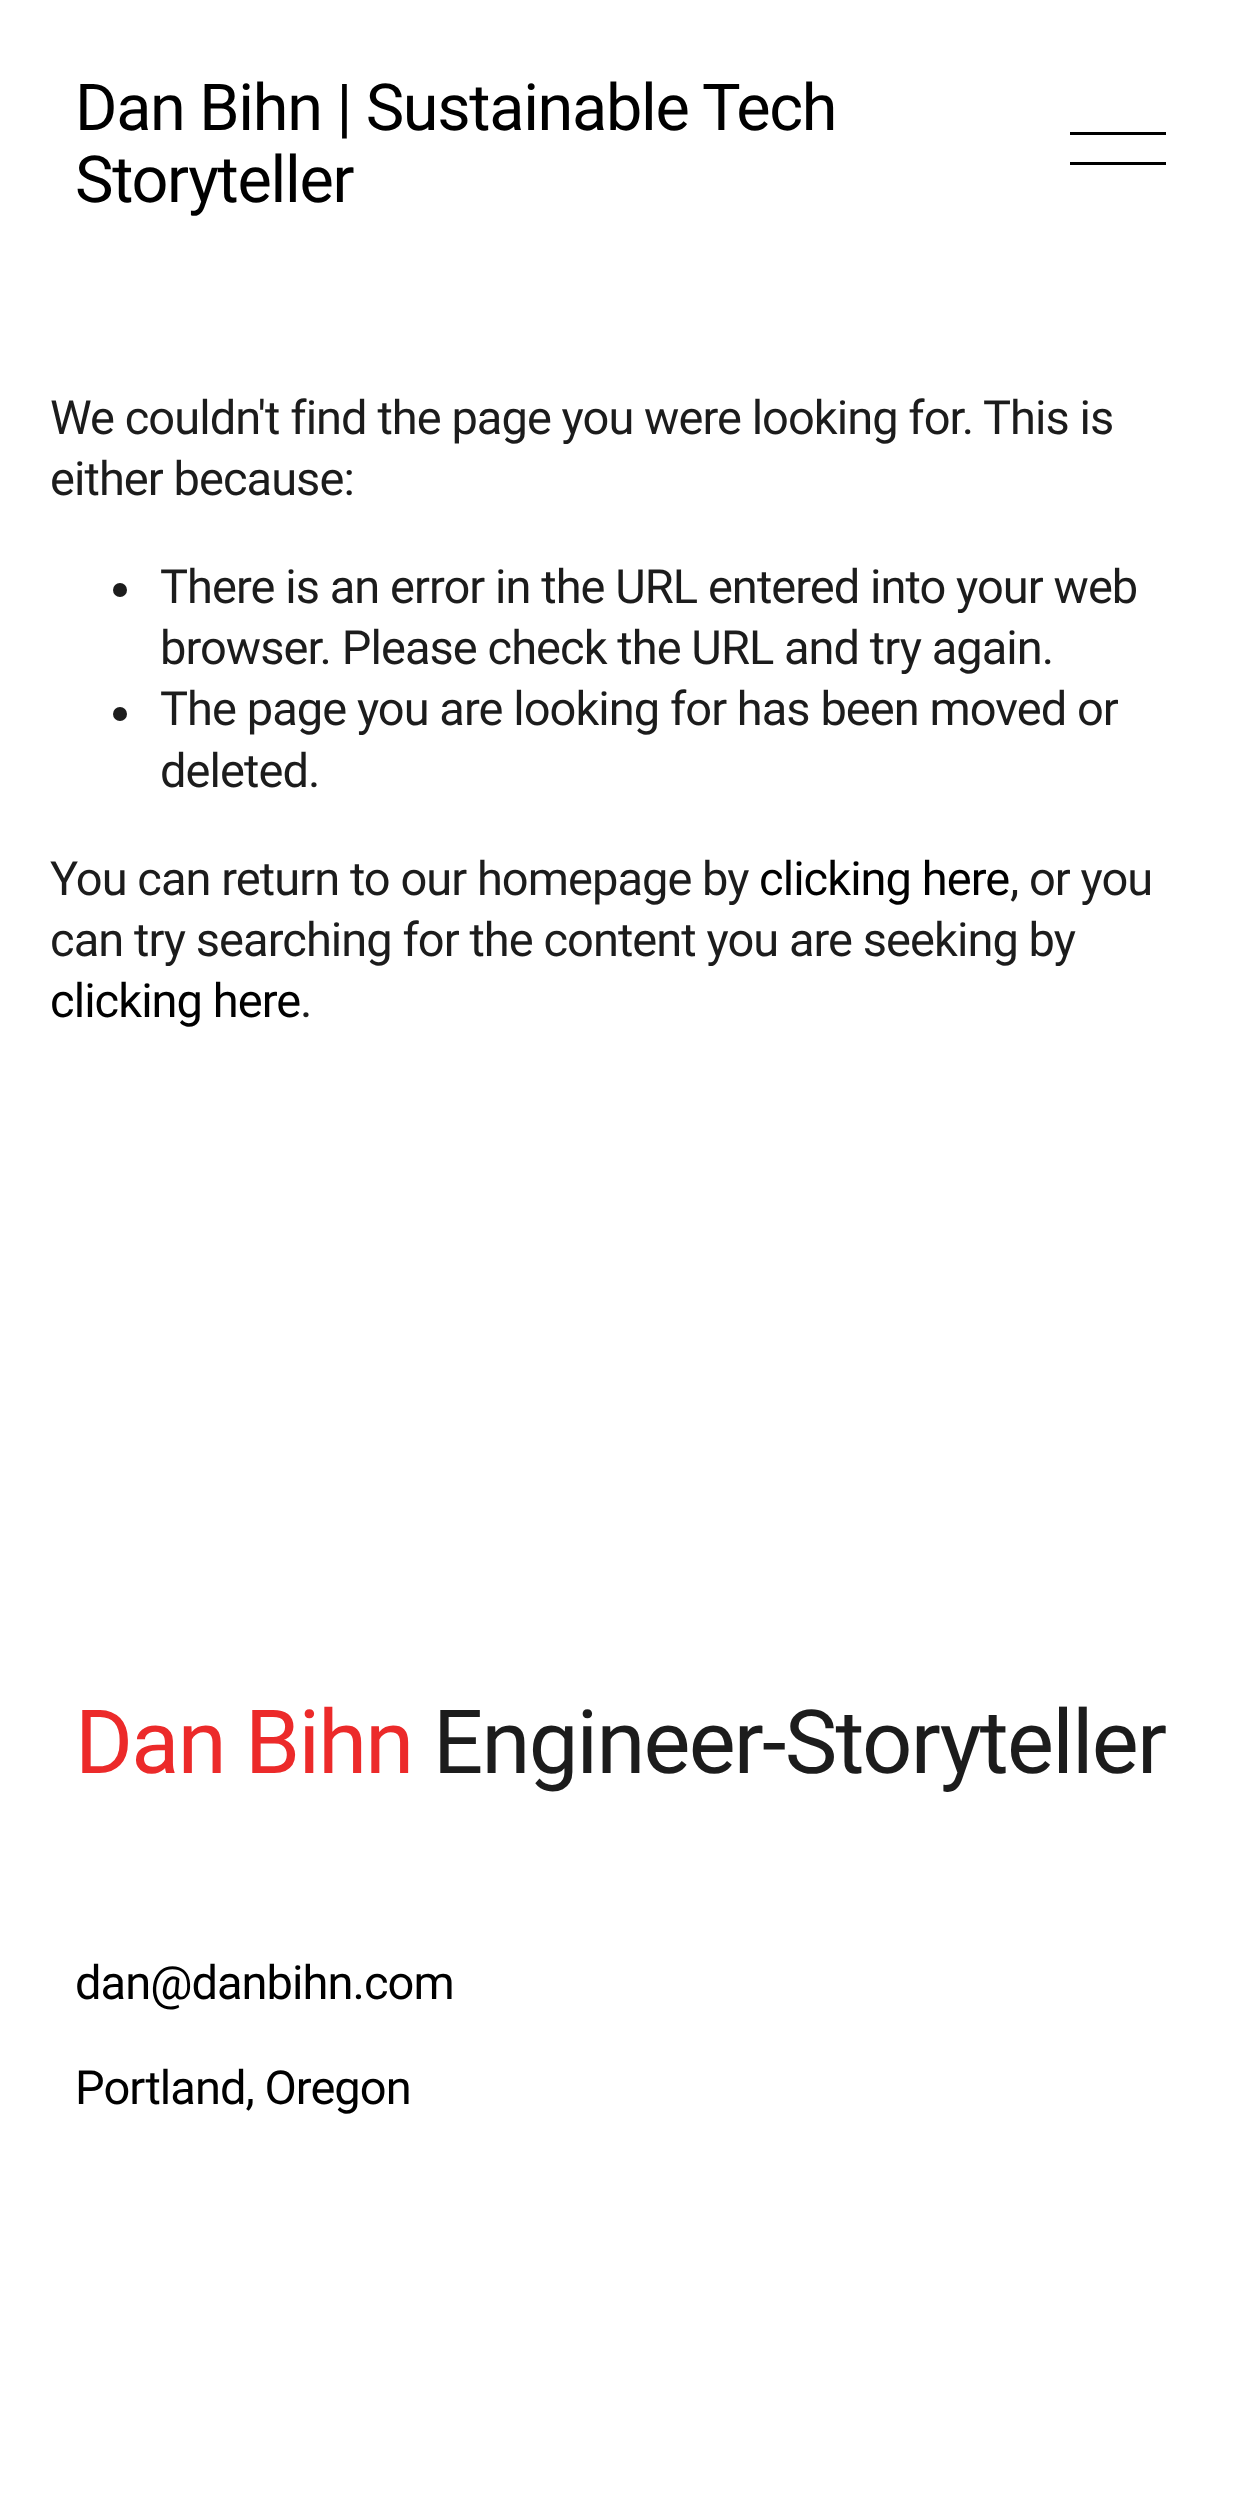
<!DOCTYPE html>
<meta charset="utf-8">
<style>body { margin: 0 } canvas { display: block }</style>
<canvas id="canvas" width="1256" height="2499"></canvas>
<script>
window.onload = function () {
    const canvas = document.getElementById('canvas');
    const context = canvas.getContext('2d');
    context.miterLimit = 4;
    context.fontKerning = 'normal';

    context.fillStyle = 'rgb(255, 255, 255)';
    context.fillRect(0, 0, 1256, 2499);
    context.fillStyle = 'rgb(0, 0, 0)';
    context.fillRect(1070, 132, 96, 3);
    context.fillRect(1070, 162, 96, 3);
    context.fillStyle = 'rgb(28, 28, 28)';
    context.beginPath();
    context.arc(120, 590, 7, 0, 2 * Math.PI);
    context.fill();
    context.beginPath();
    context.arc(120, 714, 7, 0, 2 * Math.PI);
    context.fill();
    context.letterSpacing = '-1.3px';
    context.font = '64.75px Roboto';
    context.fillStyle = 'rgb(0, 0, 0)';
    context.fillText('Dan Bihn | Sustainable Tech', 75, 130);
    context.fillText('Storyteller', 75, 202);
    context.letterSpacing = '-0.95px';
    context.font = '47px Roboto';
    context.fillStyle = 'rgb(28, 28, 28)';
    context.fillText('We couldn\'t find the page you were looking for. This is', 50, 434);
    context.fillText('either because:', 50, 495);
    context.fillText('There is an error in the URL entered into your web', 160, 603);
    context.fillText('browser. Please check the URL and try again.', 160, 664);
    context.fillText('The page you are looking for has been moved or', 160, 725);
    context.fillText('deleted.', 160, 787);
    context.fillText('You can return to our homepage by', 50, 895);
    context.fillStyle = 'rgb(0, 0, 0)';
    context.fillText('clicking here', 759, 895);
    context.fillStyle = 'rgb(28, 28, 28)';
    context.fillText(', or you', 1010, 895);
    context.fillText('can try searching for the content you are seeking by', 50, 956);
    context.fillStyle = 'rgb(0, 0, 0)';
    context.fillText('clicking here', 50, 1017);
    context.fillStyle = 'rgb(28, 28, 28)';
    context.fillText('.', 300, 1017);
    context.letterSpacing = '-1.75px';
    context.font = '88.5px Roboto';
    context.fillStyle = 'rgb(236, 42, 42)';
    context.fillText('Dan Bihn', 75, 1773);
    context.fillStyle = 'rgb(28, 28, 28)';
    context.fillText('Engineer-Storyteller', 433, 1773);
    context.letterSpacing = '-0.95px';
    context.font = '47px Roboto';
    context.fillStyle = 'rgb(0, 0, 0)';
    context.fillText('dan@danbihn.com', 75, 1999);
    context.fillText('Portland, Oregon', 75, 2104);
};
</script>
